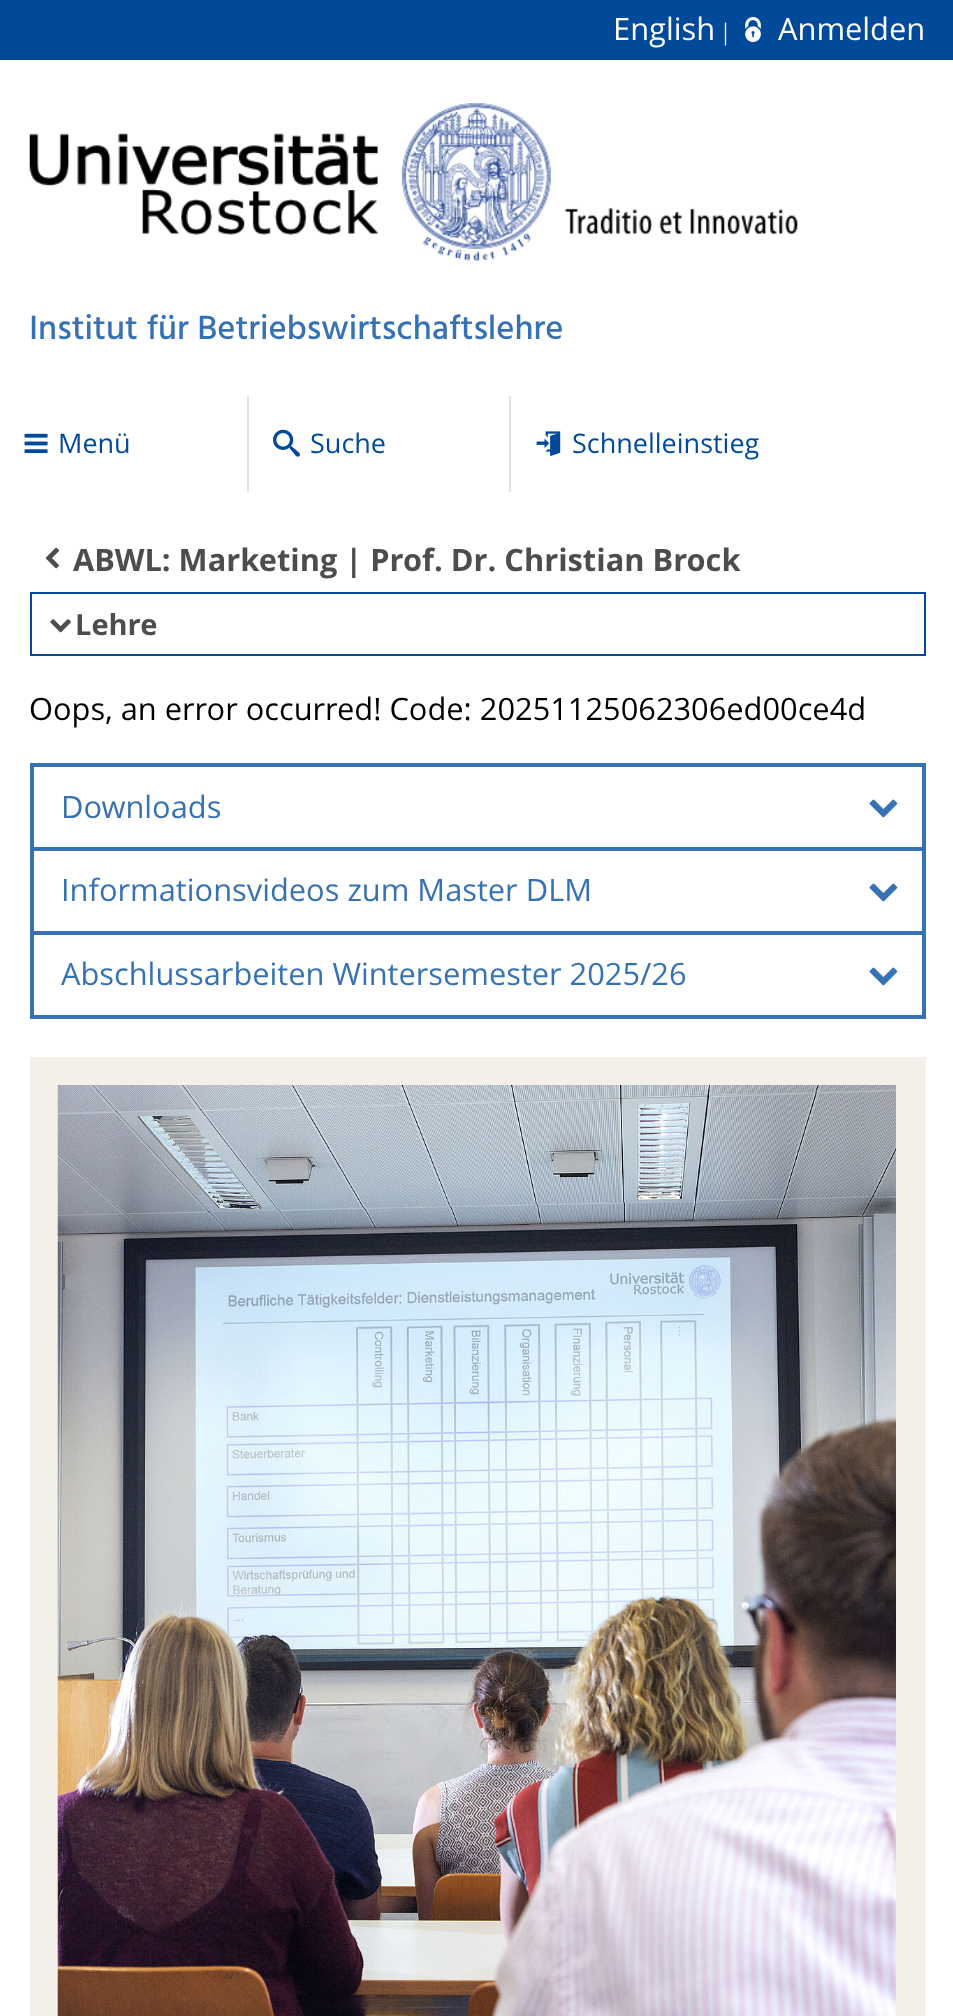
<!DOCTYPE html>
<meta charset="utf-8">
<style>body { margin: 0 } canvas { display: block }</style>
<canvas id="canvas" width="953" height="2016"></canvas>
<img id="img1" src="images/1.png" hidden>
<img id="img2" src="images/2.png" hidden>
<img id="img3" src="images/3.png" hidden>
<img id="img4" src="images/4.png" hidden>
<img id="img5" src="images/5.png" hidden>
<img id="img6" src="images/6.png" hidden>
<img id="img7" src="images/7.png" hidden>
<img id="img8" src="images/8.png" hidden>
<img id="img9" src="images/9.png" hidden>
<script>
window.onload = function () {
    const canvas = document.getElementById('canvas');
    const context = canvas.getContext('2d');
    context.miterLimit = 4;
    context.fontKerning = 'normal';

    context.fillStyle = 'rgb(255, 255, 255)';
    context.fillRect(0, 0, 953, 2016);
    context.fillStyle = 'rgb(0, 74, 153)';
    context.fillRect(0, 0, 953, 60);
    context.drawImage(document.getElementById('img1'), 745, 17, 16, 25);
    context.drawImage(document.getElementById('img2'), 29, 103, 769, 158);
    context.drawImage(document.getElementById('img3'), 24, 433, 24, 21);
    context.fillStyle = 'rgb(223, 223, 223)';
    context.fillRect(247, 396, 2, 96);
    context.drawImage(document.getElementById('img4'), 273, 429, 27, 28);
    context.fillRect(509, 396, 2, 96);
    context.drawImage(document.getElementById('img5'), 536, 431, 25, 26);
    context.drawImage(document.getElementById('img6'), 45, 547, 14, 22);
    context.strokeStyle = 'rgb(0, 74, 153)';
    context.lineWidth = 2;
    context.strokeRect(31, 593, 894, 62);
    context.drawImage(document.getElementById('img7'), 50, 619, 21, 14);
    context.strokeStyle = 'rgb(54, 114, 179)';
    context.lineWidth = 4;
    context.strokeRect(32, 765, 892, 84);
    context.drawImage(document.getElementById('img8'), 869, 799, 29, 19);
    context.strokeRect(32, 849, 892, 84);
    context.drawImage(document.getElementById('img8'), 869, 883, 29, 19);
    context.strokeRect(32, 933, 892, 84);
    context.drawImage(document.getElementById('img8'), 869, 967, 29, 19);
    context.fillStyle = 'rgb(242, 240, 233)';
    context.fillRect(30, 1057, 896, 959);
    context.drawImage(document.getElementById('img9'), 57, 1085, 839, 931);
    context.font = '30.8px Open Sans';
    context.fillStyle = 'rgb(255, 255, 255)';
    context.fillText('English', 613, 40);
    context.font = '25px Liberation Serif';
    context.fillText('|', 723, 40);
    context.font = '30.8px Open Sans';
    context.fillText('Anmelden', 778, 40);
    context.font = '500 34.6px Hind';
    context.fillStyle = 'rgb(54, 114, 179)';
    context.fillText('Institut für Betriebswirtschaftslehre', 29, 339);
    context.font = '27px Open Sans';
    context.fillStyle = 'rgb(0, 74, 153)';
    context.fillText('Menü', 58, 453);
    context.fillText('Suche', 310, 453);
    context.fillText('Schnelleinstieg', 572, 453);
    context.font = 'bold 30.8px Open Sans';
    context.fillStyle = 'rgb(77, 77, 75)';
    context.fillText('ABWL: Marketing | Prof. Dr. Christian Brock', 73, 571);
    context.font = 'bold 29px Open Sans';
    context.fillText('Lehre', 75, 635);
    context.font = '30.8px Open Sans';
    context.fillStyle = 'rgb(0, 0, 0)';
    context.fillText('Oops, an error occurred! Code: 20251125062306ed00ce4d', 29, 720);
    context.fillStyle = 'rgb(54, 114, 179)';
    context.fillText('Downloads', 61, 818);
    context.fillText('Informationsvideos zum Master DLM', 61, 901);
    context.fillText('Abschlussarbeiten Wintersemester 2025/26', 61, 985);
};
</script>
